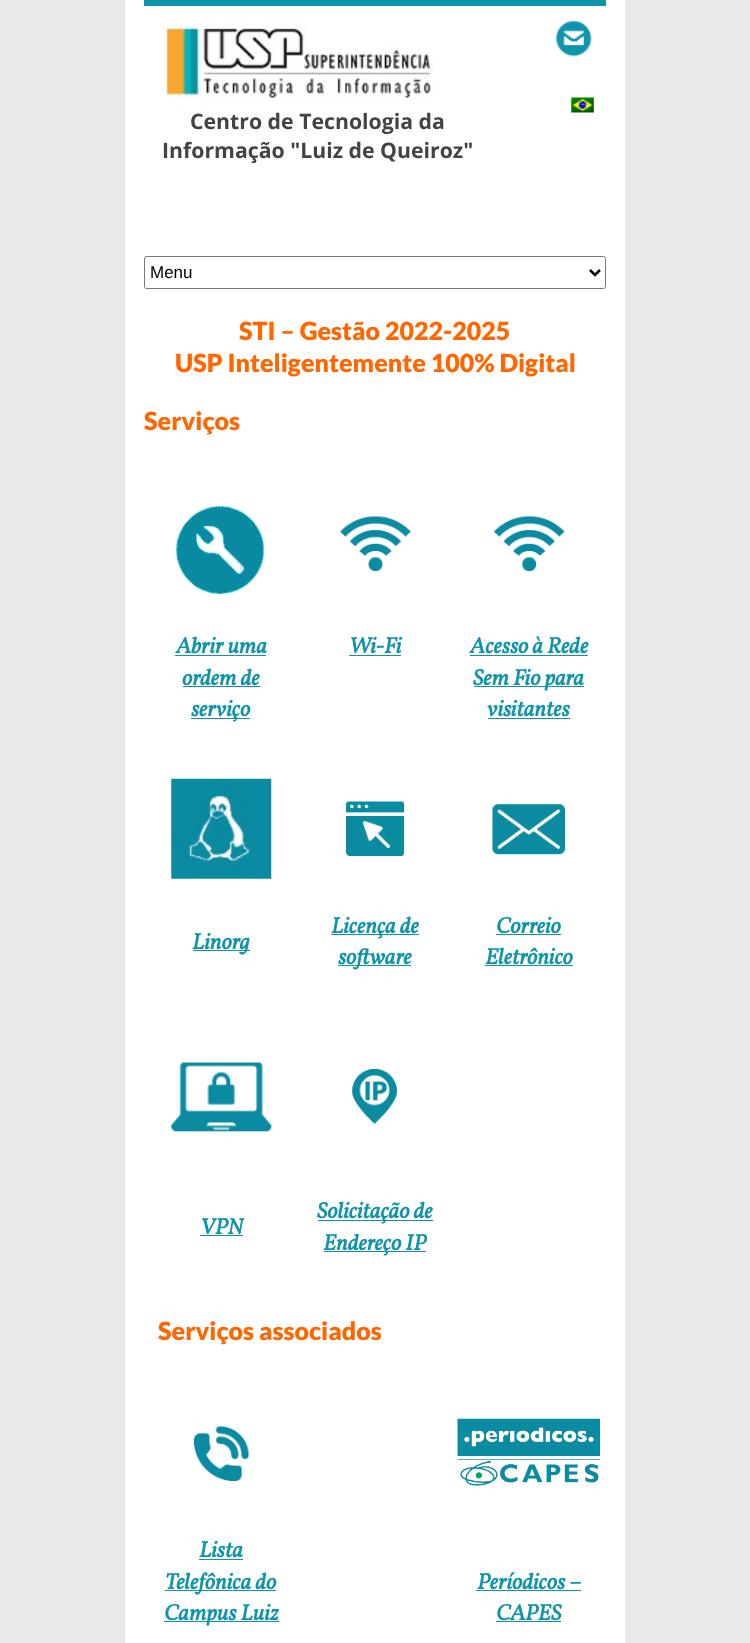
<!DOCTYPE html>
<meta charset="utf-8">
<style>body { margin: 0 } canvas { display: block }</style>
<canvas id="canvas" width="750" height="1643"></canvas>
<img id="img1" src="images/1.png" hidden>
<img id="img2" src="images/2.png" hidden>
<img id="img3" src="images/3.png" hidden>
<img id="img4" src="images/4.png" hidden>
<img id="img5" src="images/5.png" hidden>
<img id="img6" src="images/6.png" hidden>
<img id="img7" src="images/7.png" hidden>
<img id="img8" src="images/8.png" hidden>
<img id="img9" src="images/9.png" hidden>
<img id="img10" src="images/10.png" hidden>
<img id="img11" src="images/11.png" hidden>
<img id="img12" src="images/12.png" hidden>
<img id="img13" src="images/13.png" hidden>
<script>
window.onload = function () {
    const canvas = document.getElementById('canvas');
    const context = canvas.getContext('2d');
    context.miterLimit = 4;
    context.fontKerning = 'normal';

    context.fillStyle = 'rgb(233, 233, 233)';
    context.fillRect(0, 0, 750, 1643);
    context.fillStyle = 'rgb(255, 255, 255)';
    context.fillRect(125, 0, 500, 1643);
    context.fillStyle = 'rgb(16, 148, 171)';
    context.fillRect(144, 0, 462, 6);
    context.drawImage(document.getElementById('img1'), 571, 97, 23, 16);
    context.drawImage(document.getElementById('img2'), 556, 20, 36, 37);
    context.drawImage(document.getElementById('img3'), 165, 19, 269, 87);
    context.beginPath();
    context.roundRect(144.5, 256.5, 461, 32, 2);
    context.strokeStyle = 'rgb(118, 118, 118)';
    context.stroke();
    context.beginPath();
    context.moveTo(590, 270);
    context.lineTo(595, 275);
    context.lineTo(600, 270);
    context.strokeStyle = 'rgb(0, 0, 0)';
    context.lineWidth = 2.5;
    context.stroke();
    context.drawImage(document.getElementById('img4'), 176, 506, 88, 88);
    context.drawImage(document.getElementById('img5'), 340, 516, 71, 55);
    context.drawImage(document.getElementById('img6'), 494, 516, 71, 55);
    context.fillRect(175, 655, 91, 1);
    context.fillRect(183, 686, 77, 1);
    context.fillRect(191, 718, 59, 1);
    context.fillRect(349, 655, 52, 1);
    context.fillRect(470, 655, 118, 1);
    context.fillRect(474, 686, 110, 1);
    context.fillRect(488, 718, 82, 1);
    context.drawImage(document.getElementById('img7'), 171, 778, 101, 101);
    context.drawImage(document.getElementById('img8'), 346, 801, 59, 55);
    context.drawImage(document.getElementById('img9'), 492, 804, 74, 51);
    context.fillRect(193, 950, 57, 1);
    context.fillRect(331, 934, 88, 1);
    context.fillRect(338, 965, 73, 1);
    context.fillRect(496, 934, 65, 1);
    context.fillRect(485, 965, 88, 1);
    context.drawImage(document.getElementById('img10'), 171, 1062, 101, 70);
    context.drawImage(document.getElementById('img11'), 352, 1069, 45, 55);
    context.fillRect(200, 1235, 43, 1);
    context.fillRect(318, 1220, 115, 1);
    context.fillRect(324, 1251, 102, 1);
    context.drawImage(document.getElementById('img12'), 194, 1426, 55, 55);
    context.drawImage(document.getElementById('img13'), 457, 1418, 143, 68);
    context.fillRect(199, 1559, 44, 1);
    context.fillRect(165, 1590, 111, 1);
    context.fillRect(164, 1621, 115, 1);
    context.fillRect(476, 1590, 105, 1);
    context.fillRect(496, 1621, 65, 1);
    context.font = 'bold 21.25px Open Sans';
    context.fillStyle = 'rgb(70, 66, 67)';
    context.fillText('Centro de Tecnologia da', 190, 129);
    context.fillText('Informação "Luiz de Queiroz"', 162, 158);
    context.font = '17px Liberation Sans';
    context.fillStyle = 'rgb(0, 0, 0)';
    context.fillText('Menu', 150, 278);
    context.font = '900 25px Lato';
    context.fillStyle = 'rgb(255, 102, 0)';
    context.fillText('STI – Gestão 2022-2025', 239, 340);
    context.fillText('USP Inteligentemente 100% Digital', 175, 372);
    context.fillText('Serviços', 144, 430);
    context.font = 'italic bold 22.5px Vollkorn';
    context.fillStyle = 'rgb(16, 148, 171)';
    context.fillText('Abrir uma', 176, 653);
    context.fillText('ordem de', 182, 685);
    context.fillText('serviço', 191, 716);
    context.fillText('Wi-Fi', 349, 653);
    context.fillText('Acesso à Rede', 470, 653);
    context.fillText('Sem Fio para', 473, 685);
    context.fillText('visitantes', 487, 716);
    context.fillText('Linorg', 192, 949);
    context.fillText('Licença de', 331, 933);
    context.fillText('software', 338, 964);
    context.fillText('Correio', 496, 933);
    context.fillText('Eletrônico', 485, 964);
    context.fillText('VPN', 200, 1234);
    context.fillText('Solicitação de', 317, 1218);
    context.fillText('Endereço IP', 323, 1250);
    context.font = '900 25px Lato';
    context.fillStyle = 'rgb(255, 102, 0)';
    context.fillText('Serviços associados', 158, 1340);
    context.font = 'italic bold 22.5px Vollkorn';
    context.fillStyle = 'rgb(16, 148, 171)';
    context.fillText('Lista', 199, 1557);
    context.fillText('Telefônica do', 165, 1589);
    context.fillText('Campus Luiz', 164, 1620);
    context.fillText('Períodicos –', 477, 1589);
    context.fillText('CAPES', 496, 1620);
};
</script>
